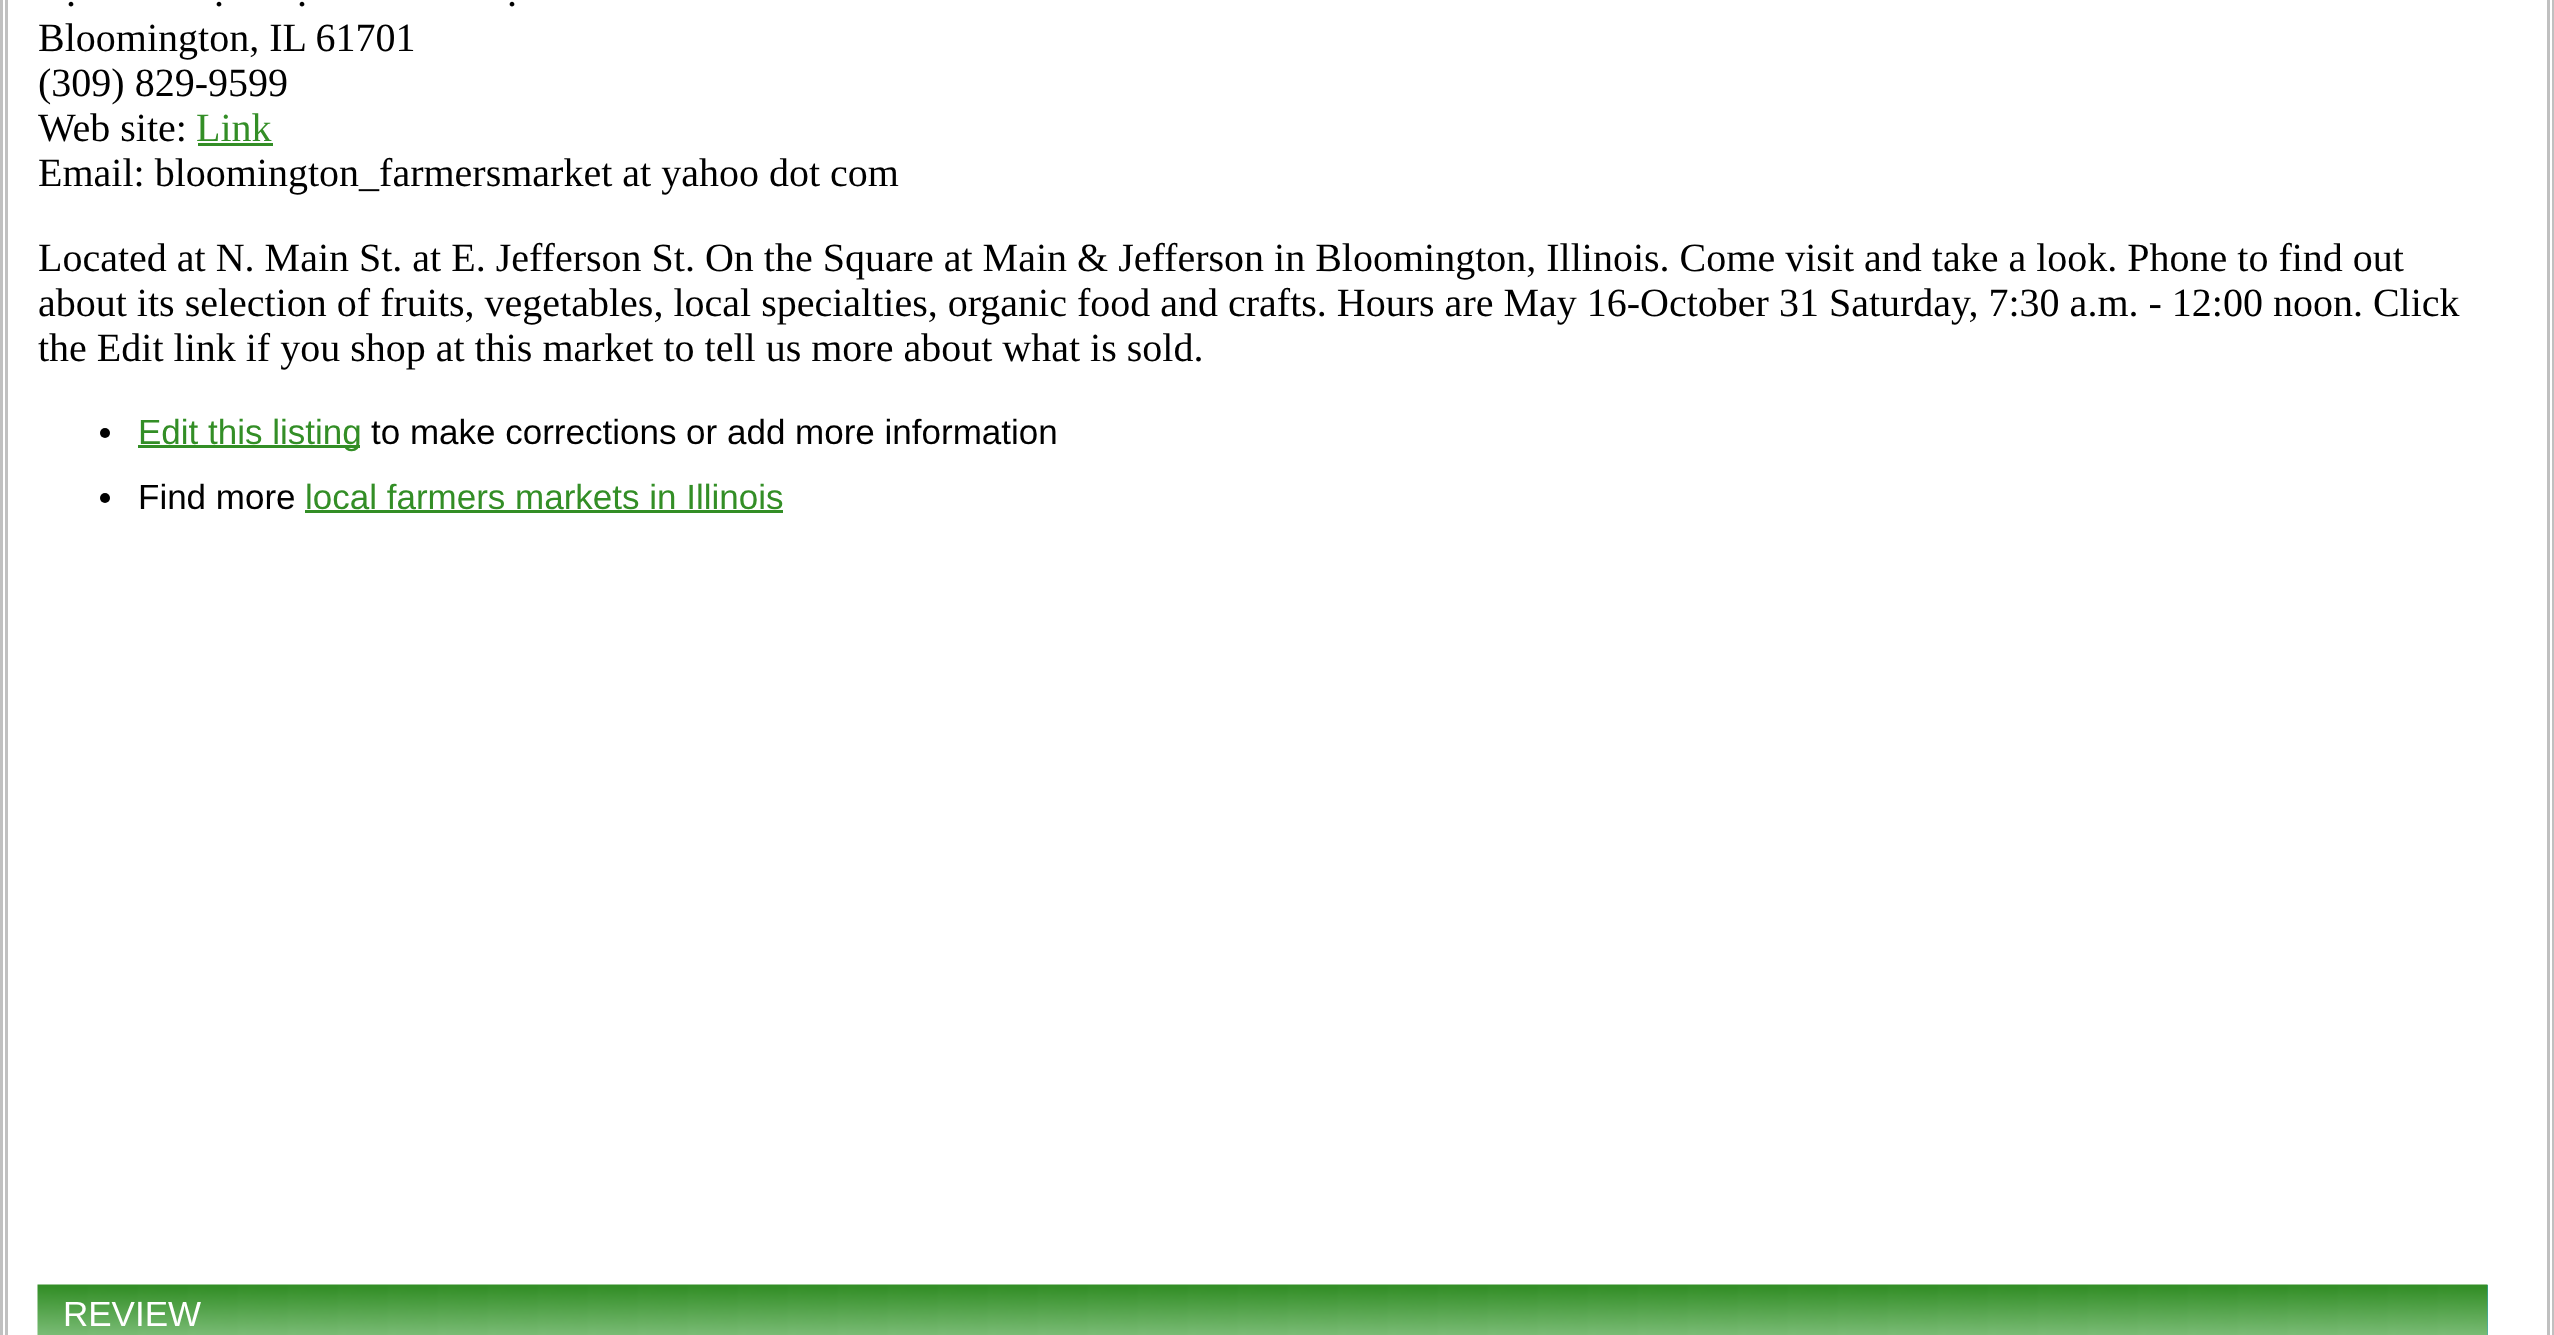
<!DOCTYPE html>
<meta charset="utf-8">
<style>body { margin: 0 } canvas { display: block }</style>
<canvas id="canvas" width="2554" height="1335"></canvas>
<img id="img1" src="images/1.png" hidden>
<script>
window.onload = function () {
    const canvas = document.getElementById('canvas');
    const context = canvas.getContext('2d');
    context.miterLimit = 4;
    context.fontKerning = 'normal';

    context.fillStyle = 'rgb(255, 255, 255)';
    context.fillRect(0, 0, 2554, 1335);
    context.strokeStyle = 'rgb(192, 192, 192)';
    context.lineWidth = 3;
    context.strokeRect(1.5, -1.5, 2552, 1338);
    context.strokeRect(6.5, -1.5, 2542, 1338);
    context.fillStyle = 'rgb(51, 142, 38)';
    context.fillRect(198, 143, 75, 3);
    context.fillStyle = 'rgb(0, 0, 0)';
    context.beginPath();
    context.arc(105, 433, 5, 0, 2 * Math.PI);
    context.fill();
    context.fillStyle = 'rgb(51, 142, 38)';
    context.fillRect(138, 445, 222, 3);
    context.fillStyle = 'rgb(0, 0, 0)';
    context.beginPath();
    context.arc(105, 498, 5, 0, 2 * Math.PI);
    context.fill();
    context.fillStyle = 'rgb(51, 142, 38)';
    context.fillRect(305, 510, 478, 3);
    context.fillStyle = 'rgb(51, 170, 204)';
    context.fillRect(2487, 1285, 1, 50);
    context.drawImage(document.getElementById('img1'), 37, 1284, 2451, 51);
    context.font = '40px Liberation Serif';
    context.fillStyle = 'rgb(0, 0, 0)';
    context.fillText('.', 66, 6);
    context.fillText('.', 214, 6);
    context.fillText('.', 297, 6);
    context.fillText('.', 507, 6);
    context.fillText('Bloomington, IL 61701', 38, 51);
    context.fillText('(309) 829-9599', 38, 96);
    context.fillText('Web site:', 38, 141);
    context.fillStyle = 'rgb(51, 142, 38)';
    context.fillText('Link', 196, 141);
    context.fillStyle = 'rgb(0, 0, 0)';
    context.fillText('Email: bloomington_farmersmarket at yahoo dot com', 38, 186);
    context.fillText('Located at N. Main St. at E. Jefferson St. On the Square at Main & Jefferson in Bloomington, Illinois. Come visit and take a look. Phone to find out', 38, 271);
    context.fillText('about its selection of fruits, vegetables, local specialties, organic food and crafts. Hours are May 16-October 31 Saturday, 7:30 a.m. - 12:00 noon. Click', 38, 316);
    context.fillText('the Edit link if you shop at this market to tell us more about what is sold.', 38, 361);
    context.font = '35px Liberation Sans';
    context.fillStyle = 'rgb(51, 142, 38)';
    context.fillText('Edit this listing', 138, 444);
    context.fillStyle = 'rgb(0, 0, 0)';
    context.fillText('to make corrections or add more information', 371, 444);
    context.fillText('Find more', 138, 509);
    context.fillStyle = 'rgb(51, 142, 38)';
    context.fillText('local farmers markets in Illinois', 305, 509);
    context.fillStyle = 'rgb(255, 255, 255)';
    context.fillText('REVIEW', 63, 1326);
};
</script>
